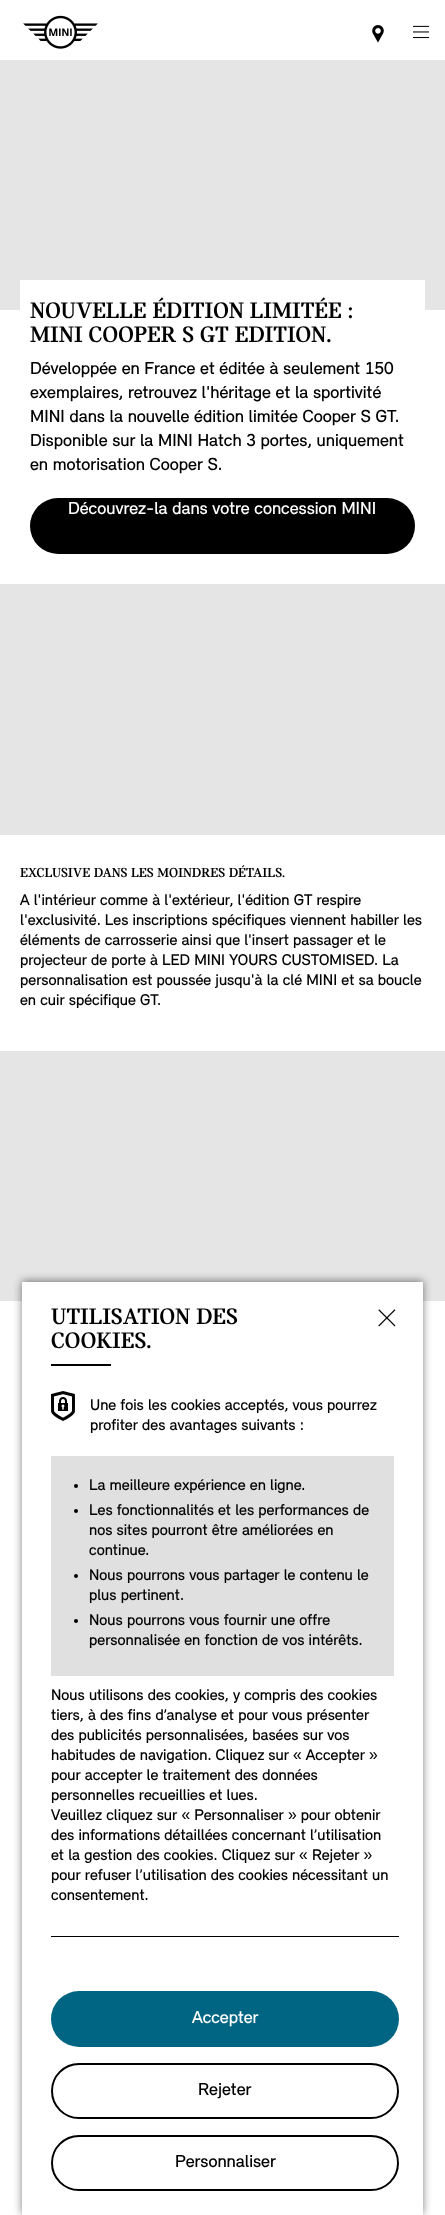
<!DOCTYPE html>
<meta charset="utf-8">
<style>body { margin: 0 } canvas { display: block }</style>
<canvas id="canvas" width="445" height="2215"></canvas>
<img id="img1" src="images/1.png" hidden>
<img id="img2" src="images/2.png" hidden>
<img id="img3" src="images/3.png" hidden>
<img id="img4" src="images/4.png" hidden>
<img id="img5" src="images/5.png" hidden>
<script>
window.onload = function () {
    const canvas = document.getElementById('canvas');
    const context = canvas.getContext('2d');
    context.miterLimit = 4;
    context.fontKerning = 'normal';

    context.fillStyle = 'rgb(255, 255, 255)';
    context.fillRect(0, 0, 445, 2215);
    context.drawImage(document.getElementById('img1'), 23, 15, 75, 34);
    context.drawImage(document.getElementById('img2'), 372, 25, 12, 18);
    context.drawImage(document.getElementById('img3'), 413, 25, 17, 14);
    context.fillStyle = 'rgb(229, 229, 229)';
    context.fillRect(0, 60, 445, 250);
    context.fillStyle = 'rgb(255, 255, 255)';
    context.fillRect(20, 280, 405, 30);
    context.fillStyle = 'rgb(0, 0, 0)';
    context.beginPath();
    context.roundRect(30, 498, 385, 56, 28);
    context.fill();
    context.fillStyle = 'rgb(229, 229, 229)';
    context.fillRect(0, 584, 445, 251);
    context.fillRect(0, 1051, 445, 250);
    context.fillStyle = 'rgba(0, 0, 0, 0.5)';
    context.filter = 'blur(4px)';
    context.beginPath();
    context.rect(22, 1281, 401, 933);
    context.fill();
    context.filter = 'none';
    context.fillStyle = 'rgb(255, 255, 255)';
    context.fillRect(22, 1282, 401, 933);
    context.fillStyle = 'rgb(0, 0, 0)';
    context.fillRect(51, 1364, 60, 2);
    context.drawImage(document.getElementById('img4'), 378, 1309, 18, 18);
    context.drawImage(document.getElementById('img5'), 51, 1391, 24, 30);
    context.fillStyle = 'rgb(224, 224, 224)';
    context.fillRect(51, 1456, 343, 220);
    context.fillStyle = 'rgb(0, 0, 0)';
    context.beginPath();
    context.arc(76, 1486, 2, 0, 2 * Math.PI);
    context.fill();
    context.beginPath();
    context.arc(76, 1511, 2, 0, 2 * Math.PI);
    context.fill();
    context.beginPath();
    context.arc(76, 1576, 2, 0, 2 * Math.PI);
    context.fill();
    context.beginPath();
    context.arc(76, 1621, 2, 0, 2 * Math.PI);
    context.fill();
    context.fillRect(51, 1936, 348, 1);
    context.fillStyle = 'rgb(0, 101, 131)';
    context.beginPath();
    context.roundRect(51, 1991, 348, 56, 28);
    context.fill();
    context.beginPath();
    context.roundRect(52, 2064, 346, 54, 27);
    context.strokeStyle = 'rgb(0, 0, 0)';
    context.lineWidth = 2;
    context.stroke();
    context.beginPath();
    context.roundRect(52, 2136, 346, 54, 27);
    context.stroke();
    context.font = 'bold 24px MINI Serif';
    context.fillStyle = 'rgb(0, 0, 0)';
    context.fillText('NOUVELLE ÉDITION LIMITÉE :', 30, 318);
    context.fillText('MINI COOPER S GT EDITION.', 30, 342);
    context.font = '18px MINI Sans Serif';
    context.fillText('Développée en France et éditée à seulement 150', 30, 374);
    context.fillText('exemplaires, retrouvez l\'héritage et la sportivité', 30, 398);
    context.fillText('MINI dans la nouvelle édition limitée Cooper S GT.', 30, 422);
    context.fillText('Disponible sur la MINI Hatch 3 portes, uniquement', 30, 446);
    context.fillText('en motorisation Cooper S.', 30, 470);
    context.fillStyle = 'rgb(255, 255, 255)';
    context.fillText('Découvrez-la dans votre concession MINI', 68, 514);
    context.font = 'bold 14px MINI Serif';
    context.fillStyle = 'rgb(0, 0, 0)';
    context.fillText('EXCLUSIVE DANS LES MOINDRES DÉTAILS.', 20, 877);
    context.font = '16px MINI Sans Serif';
    context.fillText('A l\'intérieur comme à l\'extérieur, l\'édition GT respire', 20, 905);
    context.fillText('l\'exclusivité. Les inscriptions spécifiques viennent habiller les', 20, 925);
    context.fillText('éléments de carrosserie ainsi que l\'insert passager et le', 20, 945);
    context.fillText('projecteur de porte à LED MINI YOURS CUSTOMISED. La', 20, 965);
    context.fillText('personnalisation est poussée jusqu\'à la clé MINI et sa boucle', 20, 985);
    context.fillText('en cuir spécifique GT.', 20, 1005);
    context.font = 'bold 24px MINI Serif';
    context.fillText('UTILISATION DES', 51, 1324);
    context.fillText('COOKIES.', 51, 1348);
    context.font = '16px MINI Sans Serif';
    context.fillText('Une fois les cookies acceptés, vous pourrez', 90, 1410);
    context.fillText('profiter des avantages suivants :', 90, 1430);
    context.fillText('La meilleure expérience en ligne.', 89, 1490);
    context.fillText('Les fonctionnalités et les performances de', 89, 1515);
    context.fillText('nos sites pourront être améliorées en', 89, 1535);
    context.fillText('continue.', 89, 1555);
    context.fillText('Nous pourrons vous partager le contenu le', 89, 1580);
    context.fillText('plus pertinent.', 89, 1600);
    context.fillText('Nous pourrons vous fournir une offre', 89, 1625);
    context.fillText('personnalisée en fonction de vos intérêts.', 89, 1645);
    context.fillText('Nous utilisons des cookies, y compris des cookies', 51, 1700);
    context.fillText('tiers, à des fins d’analyse et pour vous présenter', 51, 1720);
    context.fillText('des publicités personnalisées, basées sur vos', 51, 1740);
    context.fillText('habitudes de navigation. Cliquez sur « Accepter »', 51, 1760);
    context.fillText('pour accepter le traitement des données', 51, 1780);
    context.fillText('personnelles recueillies et lues.', 51, 1800);
    context.fillText('Veuillez cliquez sur « Personnaliser » pour obtenir', 51, 1820);
    context.fillText('des informations détaillées concernant l’utilisation', 51, 1840);
    context.fillText('et la gestion des cookies. Cliquez sur « Rejeter »', 51, 1860);
    context.fillText('pour refuser l’utilisation des cookies nécessitant un', 51, 1880);
    context.fillText('consentement.', 51, 1900);
    context.font = '18px MINI Sans Serif';
    context.fillStyle = 'rgb(255, 255, 255)';
    context.fillText('Accepter', 192, 2023);
    context.fillStyle = 'rgb(0, 0, 0)';
    context.fillText('Rejeter', 198, 2095);
    context.fillText('Personnaliser', 175, 2167);
};
</script>
